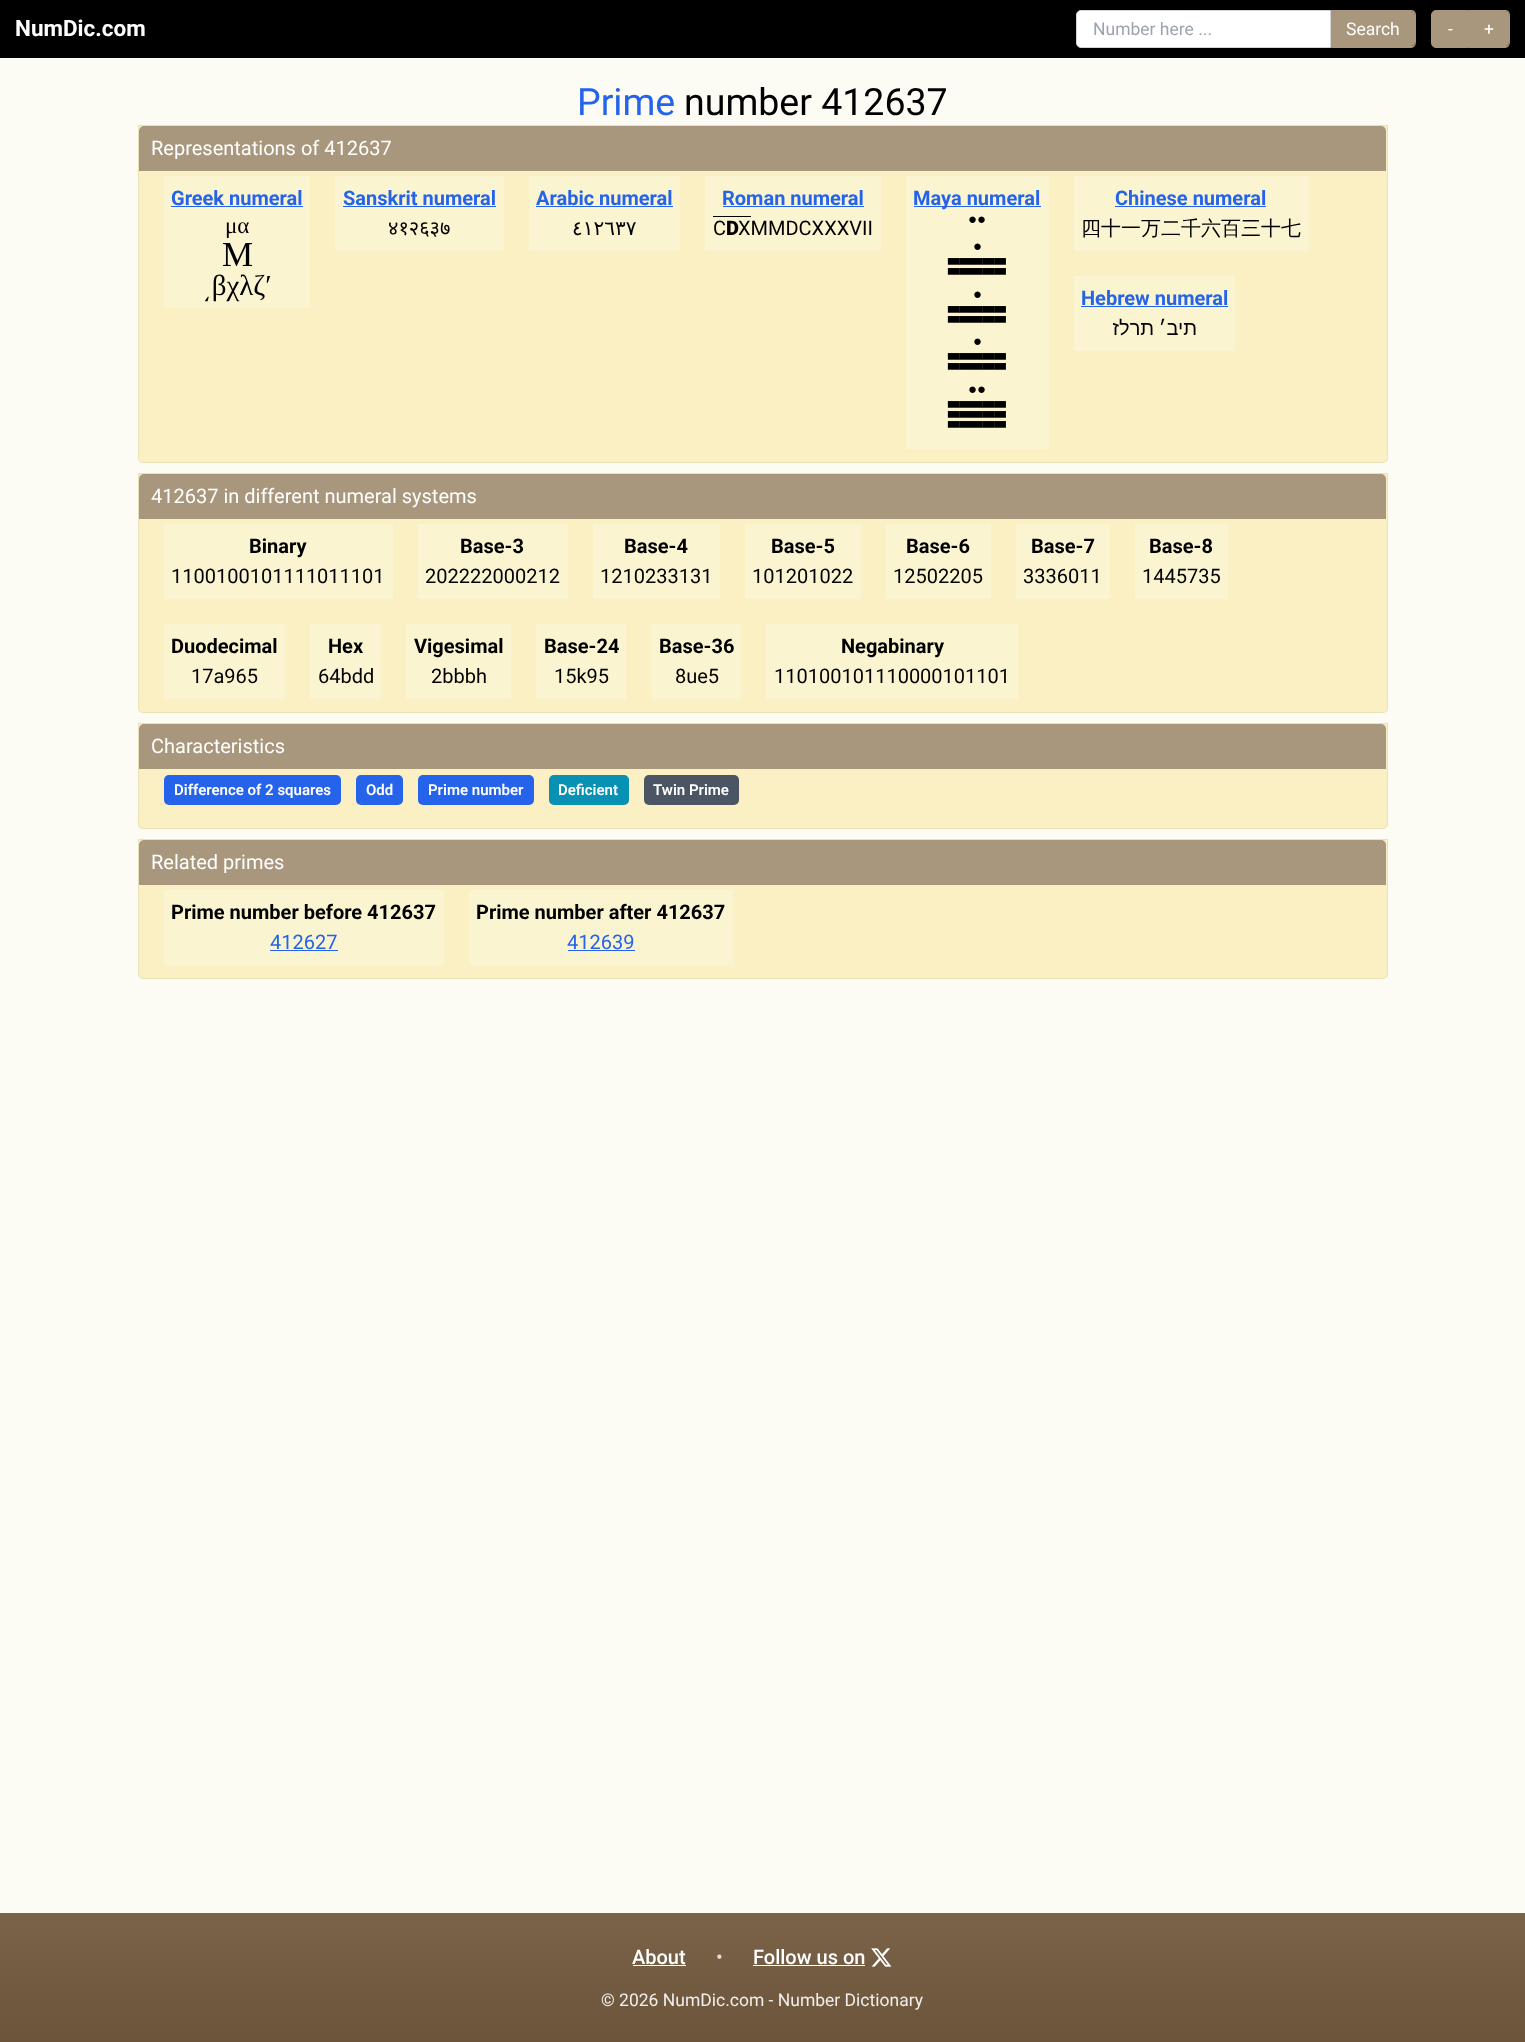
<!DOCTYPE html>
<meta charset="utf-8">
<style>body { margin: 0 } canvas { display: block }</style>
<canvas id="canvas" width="1525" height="2042"></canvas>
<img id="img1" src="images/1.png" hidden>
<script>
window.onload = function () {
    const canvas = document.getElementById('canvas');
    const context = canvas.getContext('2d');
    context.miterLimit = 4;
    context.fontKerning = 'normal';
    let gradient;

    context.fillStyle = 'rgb(252, 251, 244)';
    context.fillRect(0, 0, 1525, 2042);
    context.fillStyle = 'rgb(0, 0, 0)';
    context.fillRect(0, 0, 1525, 58);
    context.fillStyle = 'rgb(255, 255, 255)';
    context.beginPath();
    context.roundRect(1076.5, 10.5, 254, 37, [4.5, 0, 0, 4.5]);
    context.fill();
    context.strokeStyle = 'rgb(209, 213, 219)';
    context.stroke();
    context.fillStyle = 'rgb(168, 150, 125)';
    context.beginPath();
    context.roundRect(1331, 11, 84, 35, [0, 4, 4, 0]);
    context.fill();
    context.beginPath();
    context.moveTo(1331, 10);
    context.lineTo(1411, 10);
    context.bezierCurveTo(1414, 10, 1416, 12, 1416, 15);
    context.lineTo(1416, 42);
    context.bezierCurveTo(1416, 45, 1414, 48, 1411, 48);
    context.lineTo(1331, 48);
    context.closePath();
    context.moveTo(1331, 11);
    context.lineTo(1411, 11);
    context.bezierCurveTo(1413, 11, 1415, 13, 1415, 15);
    context.lineTo(1415, 42);
    context.bezierCurveTo(1415, 45, 1413, 46, 1411, 46);
    context.lineTo(1331, 46);
    context.closePath();
    context.fill('evenodd');
    context.beginPath();
    context.roundRect(1431.5, 10.5, 37, 37, [4.5, 0, 0, 4.5]);
    context.fill();
    context.strokeStyle = 'rgb(168, 150, 125)';
    context.stroke();
    context.beginPath();
    context.roundRect(1469, 11, 40, 35, [0, 4, 4, 0]);
    context.fill();
    context.beginPath();
    context.moveTo(1469, 10);
    context.lineTo(1505, 10);
    context.bezierCurveTo(1508, 10, 1510, 12, 1510, 15);
    context.lineTo(1510, 42);
    context.bezierCurveTo(1510, 45, 1508, 48, 1505, 48);
    context.lineTo(1469, 48);
    context.closePath();
    context.moveTo(1469, 11);
    context.lineTo(1505, 11);
    context.bezierCurveTo(1507, 11, 1509, 13, 1509, 15);
    context.lineTo(1509, 42);
    context.bezierCurveTo(1509, 45, 1507, 46, 1505, 46);
    context.lineTo(1469, 46);
    context.closePath();
    context.fill('evenodd');
    context.fillStyle = 'rgb(250, 240, 196)';
    context.beginPath();
    context.roundRect(138, 125, 1250, 338, [0, 0, 5, 5]);
    context.fill();
    context.beginPath();
    context.roundRect(138.5, 125.5, 1249, 337, [0, 0, 4.5, 4.5]);
    context.strokeStyle = 'rgba(157, 138, 114, 0.15)';
    context.stroke();
    context.fillStyle = 'rgb(168, 150, 125)';
    context.beginPath();
    context.roundRect(139, 126, 1247, 45, [5, 5, 0, 0]);
    context.fill();
    context.fillStyle = 'rgb(250, 245, 208)';
    context.fillRect(164, 176, 146, 132);
    context.fillStyle = 'rgb(37, 99, 235)';
    context.fillRect(171, 206, 132, 1);
    context.fillStyle = 'rgb(250, 245, 208)';
    context.fillRect(335, 176, 169, 75);
    context.fillStyle = 'rgb(37, 99, 235)';
    context.fillRect(343, 206, 153, 1);
    context.fillStyle = 'rgb(250, 245, 208)';
    context.fillRect(529, 176, 151, 75);
    context.fillStyle = 'rgb(37, 99, 235)';
    context.fillRect(536, 206, 137, 1);
    context.fillStyle = 'rgb(250, 245, 208)';
    context.fillRect(705, 176, 176, 75);
    context.fillStyle = 'rgb(37, 99, 235)';
    context.fillRect(723, 206, 141, 1);
    context.fillStyle = 'rgb(0, 0, 0)';
    context.fillRect(713, 216, 38, 1);
    context.fillStyle = 'rgb(250, 245, 208)';
    context.fillRect(906, 176, 143, 273);
    context.fillStyle = 'rgb(37, 99, 235)';
    context.fillRect(914, 206, 127, 1);
    context.fillStyle = 'rgb(250, 245, 208)';
    context.fillRect(1074, 176, 235, 75);
    context.fillStyle = 'rgb(37, 99, 235)';
    context.fillRect(1115, 206, 151, 1);
    context.fillStyle = 'rgb(250, 245, 208)';
    context.fillRect(1074, 276, 161, 75);
    context.fillStyle = 'rgb(37, 99, 235)';
    context.fillRect(1081, 306, 147, 1);
    context.fillStyle = 'rgb(250, 240, 196)';
    context.beginPath();
    context.roundRect(138, 473, 1250, 240, [0, 0, 5, 5]);
    context.fill();
    context.beginPath();
    context.roundRect(138.5, 473.5, 1249, 239, [0, 0, 4.5, 4.5]);
    context.stroke();
    context.fillStyle = 'rgb(168, 150, 125)';
    context.beginPath();
    context.roundRect(139, 474, 1247, 45, [5, 5, 0, 0]);
    context.fill();
    context.fillStyle = 'rgb(250, 245, 208)';
    context.fillRect(164, 524, 229, 75);
    context.fillRect(418, 524, 150, 75);
    context.fillRect(593, 524, 127, 75);
    context.fillRect(745, 524, 116, 75);
    context.fillRect(886, 524, 105, 75);
    context.fillRect(1016, 524, 94, 75);
    context.fillRect(1135, 524, 93, 75);
    context.fillRect(164, 624, 121, 75);
    context.fillRect(310, 624, 71, 75);
    context.fillRect(406, 624, 105, 75);
    context.fillRect(536, 624, 90, 75);
    context.fillRect(651, 624, 90, 75);
    context.fillRect(766, 624, 252, 75);
    context.fillStyle = 'rgb(250, 240, 196)';
    context.beginPath();
    context.roundRect(138, 723, 1250, 106, [0, 0, 5, 5]);
    context.fill();
    context.beginPath();
    context.roundRect(138.5, 723.5, 1249, 105, [0, 0, 4.5, 4.5]);
    context.stroke();
    context.fillStyle = 'rgb(168, 150, 125)';
    context.beginPath();
    context.roundRect(139, 724, 1247, 45, [5, 5, 0, 0]);
    context.fill();
    context.fillStyle = 'rgb(37, 99, 235)';
    context.beginPath();
    context.roundRect(164, 775, 177, 30, 5);
    context.fill();
    context.beginPath();
    context.roundRect(356, 775, 47, 30, 5);
    context.fill();
    context.beginPath();
    context.roundRect(418, 775, 116, 30, 5);
    context.fill();
    context.fillStyle = 'rgb(8, 145, 178)';
    context.beginPath();
    context.roundRect(549, 775, 80, 30, 5);
    context.fill();
    context.fillStyle = 'rgb(75, 85, 99)';
    context.beginPath();
    context.roundRect(644, 775, 95, 30, 5);
    context.fill();
    context.fillStyle = 'rgb(250, 240, 196)';
    context.beginPath();
    context.roundRect(138, 839, 1250, 140, [0, 0, 5, 5]);
    context.fill();
    context.beginPath();
    context.roundRect(138.5, 839.5, 1249, 139, [0, 0, 4.5, 4.5]);
    context.stroke();
    context.fillStyle = 'rgb(168, 150, 125)';
    context.beginPath();
    context.roundRect(139, 840, 1247, 45, [5, 5, 0, 0]);
    context.fill();
    context.fillStyle = 'rgb(250, 245, 208)';
    context.fillRect(164, 890, 280, 75);
    context.fillStyle = 'rgb(37, 99, 235)';
    context.fillRect(270, 950, 68, 1);
    context.fillStyle = 'rgb(250, 245, 208)';
    context.fillRect(469, 890, 264, 75);
    context.fillStyle = 'rgb(37, 99, 235)';
    context.fillRect(568, 950, 67, 1);
    gradient = context.createLinearGradient(763, 1913, 763, 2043);
    gradient.addColorStop(0, 'rgb(122, 99, 73)');
    gradient.addColorStop(1, 'rgb(107, 84, 57)');
    context.fillStyle = gradient;
    context.fillRect(0, 1913, 1525, 129);
    context.fillStyle = 'rgb(255, 255, 255)';
    context.fillRect(633, 1965, 53, 1);
    context.fillRect(753, 1965, 112, 1);
    context.drawImage(document.getElementById('img1'), 871, 1948, 21, 19);
    context.font = 'bold 22.5px Roboto';
    context.fillText('NumDic.com', 15, 36);
    context.font = '17.5px Roboto';
    context.fillStyle = 'rgb(156, 163, 175)';
    context.fillText('Number here ...', 1093, 35);
    context.fillStyle = 'rgb(255, 255, 255)';
    context.fillText('Search', 1346, 35);
    context.fillText('-', 1448, 35);
    context.fillText('+', 1484, 35);
    context.font = '37.5px Roboto';
    context.fillStyle = 'rgb(37, 99, 235)';
    context.fillText('Prime', 577, 115);
    context.fillStyle = 'rgb(0, 0, 0)';
    context.fillText('number 412637', 684, 115);
    context.font = '20px Roboto';
    context.fillStyle = 'rgb(255, 255, 255)';
    context.fillText('Representations of 412637', 151, 155);
    context.font = 'bold 20px Roboto';
    context.fillStyle = 'rgb(37, 99, 235)';
    context.fillText('Greek numeral', 171, 205);
    context.font = '23px Liberation Serif';
    context.fillStyle = 'rgb(0, 0, 0)';
    context.fillText('μα', 225, 233);
    context.font = '35px Liberation Serif';
    context.fillText('Μ', 222, 266);
    context.font = '29px Liberation Serif';
    context.fillText('͵βχλζʹ', 202, 295);
    context.font = 'bold 20px Roboto';
    context.fillStyle = 'rgb(37, 99, 235)';
    context.fillText('Sanskrit numeral', 343, 205);
    context.font = '20px Noto Sans';
    context.fillStyle = 'rgb(0, 0, 0)';
    context.fillText('४१२६३७', 388, 235);
    context.font = 'bold 20px Roboto';
    context.fillStyle = 'rgb(37, 99, 235)';
    context.fillText('Arabic numeral', 536, 205);
    context.font = '20px DejaVu Sans';
    context.fillStyle = 'rgb(0, 0, 0)';
    context.fillText('٤١٢٦٣٧', 572, 235);
    context.font = 'bold 20px Roboto';
    context.fillStyle = 'rgb(37, 99, 235)';
    context.fillText('Roman numeral', 722, 205);
    context.font = '20px Roboto';
    context.fillStyle = 'rgb(0, 0, 0)';
    context.fillText('C', 713, 235);
    context.font = '900 20px Roboto';
    context.fillText('D', 726, 235);
    context.font = '20px Roboto';
    context.fillText('XMMDCXXXVII', 738, 235);
    context.font = 'bold 20px Roboto';
    context.fillStyle = 'rgb(37, 99, 235)';
    context.fillText('Maya numeral', 913, 205);
    context.font = '15px Liberation Sans';
    context.fillStyle = 'rgb(0, 0, 0)';
    context.fillText('●●', 968, 224);
    context.fillText('●', 973, 251);
    context.font = '15px DejaVu Sans';
    context.fillText('▃▃▃▃▃', 948, 261);
    context.fillText('▃▃▃▃▃', 948, 271);
    context.font = '15px Liberation Sans';
    context.fillText('●', 973, 299);
    context.font = '15px DejaVu Sans';
    context.fillText('▃▃▃▃▃', 948, 309);
    context.fillText('▃▃▃▃▃', 948, 319);
    context.font = '15px Liberation Sans';
    context.fillText('●', 973, 346);
    context.font = '15px DejaVu Sans';
    context.fillText('▃▃▃▃▃', 948, 356);
    context.fillText('▃▃▃▃▃', 948, 366);
    context.font = '15px Liberation Sans';
    context.fillText('●●', 968, 394);
    context.font = '15px DejaVu Sans';
    context.fillText('▃▃▃▃▃', 948, 404);
    context.fillText('▃▃▃▃▃', 948, 414);
    context.fillText('▃▃▃▃▃', 948, 424);
    context.font = 'bold 20px Roboto';
    context.fillStyle = 'rgb(37, 99, 235)';
    context.fillText('Chinese numeral', 1115, 205);
    context.font = '500 20px WenQuanYi Zen Hei';
    context.fillStyle = 'rgb(0, 0, 0)';
    context.fillText('四十一万二千六百三十七', 1081, 235);
    context.font = 'bold 20px Roboto';
    context.fillStyle = 'rgb(37, 99, 235)';
    context.fillText('Hebrew numeral', 1081, 305);
    context.wordSpacing = '-1px';
    context.direction = 'rtl';
    context.font = '20px Liberation Sans';
    context.fillStyle = 'rgb(0, 0, 0)';
    context.fillText('תיב׳ תרלז', 1197, 335);
    context.wordSpacing = '0px';
    context.direction = 'ltr';
    context.font = '20px Roboto';
    context.fillStyle = 'rgb(255, 255, 255)';
    context.fillText('412637 in different numeral systems', 151, 503);
    context.font = 'bold 20px Roboto';
    context.fillStyle = 'rgb(0, 0, 0)';
    context.fillText('Binary', 249, 553);
    context.font = '20px Roboto';
    context.fillText('1100100101111011101', 171, 583);
    context.font = 'bold 20px Roboto';
    context.fillText('Base-3', 460, 553);
    context.font = '20px Roboto';
    context.fillText('202222000212', 425, 583);
    context.font = 'bold 20px Roboto';
    context.fillText('Base-4', 624, 553);
    context.font = '20px Roboto';
    context.fillText('1210233131', 600, 583);
    context.font = 'bold 20px Roboto';
    context.fillText('Base-5', 771, 553);
    context.font = '20px Roboto';
    context.fillText('101201022', 752, 583);
    context.font = 'bold 20px Roboto';
    context.fillText('Base-6', 906, 553);
    context.font = '20px Roboto';
    context.fillText('12502205', 893, 583);
    context.font = 'bold 20px Roboto';
    context.fillText('Base-7', 1031, 553);
    context.font = '20px Roboto';
    context.fillText('3336011', 1023, 583);
    context.font = 'bold 20px Roboto';
    context.fillText('Base-8', 1149, 553);
    context.font = '20px Roboto';
    context.fillText('1445735', 1142, 583);
    context.font = 'bold 20px Roboto';
    context.fillText('Duodecimal', 171, 653);
    context.font = '20px Roboto';
    context.fillText('17a965', 191, 683);
    context.font = 'bold 20px Roboto';
    context.fillText('Hex', 328, 653);
    context.font = '20px Roboto';
    context.fillText('64bdd', 318, 683);
    context.font = 'bold 20px Roboto';
    context.fillText('Vigesimal', 414, 653);
    context.font = '20px Roboto';
    context.fillText('2bbbh', 431, 683);
    context.font = 'bold 20px Roboto';
    context.fillText('Base-24', 544, 653);
    context.font = '20px Roboto';
    context.fillText('15k95', 554, 683);
    context.font = 'bold 20px Roboto';
    context.fillText('Base-36', 659, 653);
    context.font = '20px Roboto';
    context.fillText('8ue5', 675, 683);
    context.font = 'bold 20px Roboto';
    context.fillText('Negabinary', 841, 653);
    context.font = '20px Roboto';
    context.fillText('110100101110000101101', 774, 683);
    context.fillStyle = 'rgb(255, 255, 255)';
    context.fillText('Characteristics', 151, 753);
    context.font = '600 15px Roboto';
    context.fillText('Difference of 2 squares', 174, 795);
    context.fillText('Odd', 366, 795);
    context.fillText('Prime number', 428, 795);
    context.fillText('Deficient', 558, 795);
    context.fillText('Twin Prime', 653, 795);
    context.font = '20px Roboto';
    context.fillText('Related primes', 151, 869);
    context.font = 'bold 20px Roboto';
    context.fillStyle = 'rgb(0, 0, 0)';
    context.fillText('Prime number before 412637', 171, 919);
    context.font = '20px Roboto';
    context.fillStyle = 'rgb(37, 99, 235)';
    context.fillText('412627', 270, 949);
    context.font = 'bold 20px Roboto';
    context.fillStyle = 'rgb(0, 0, 0)';
    context.fillText('Prime number after 412637', 476, 919);
    context.font = '20px Roboto';
    context.fillStyle = 'rgb(37, 99, 235)';
    context.fillText('412639', 567, 949);
    context.font = '500 20px Roboto';
    context.fillStyle = 'rgb(255, 255, 255)';
    context.fillText('About', 632, 1964);
    context.font = '20px Roboto';
    context.fillStyle = 'rgb(227, 223, 218)';
    context.fillText('•', 716, 1964);
    context.font = '500 20px Roboto';
    context.fillStyle = 'rgb(255, 255, 255)';
    context.fillText('Follow us on', 753, 1964);
    context.font = '17.5px Roboto';
    context.fillStyle = 'rgb(241, 238, 236)';
    context.fillText('© 2026 NumDic.com - Number Dictionary', 601, 2006);
};
</script>
